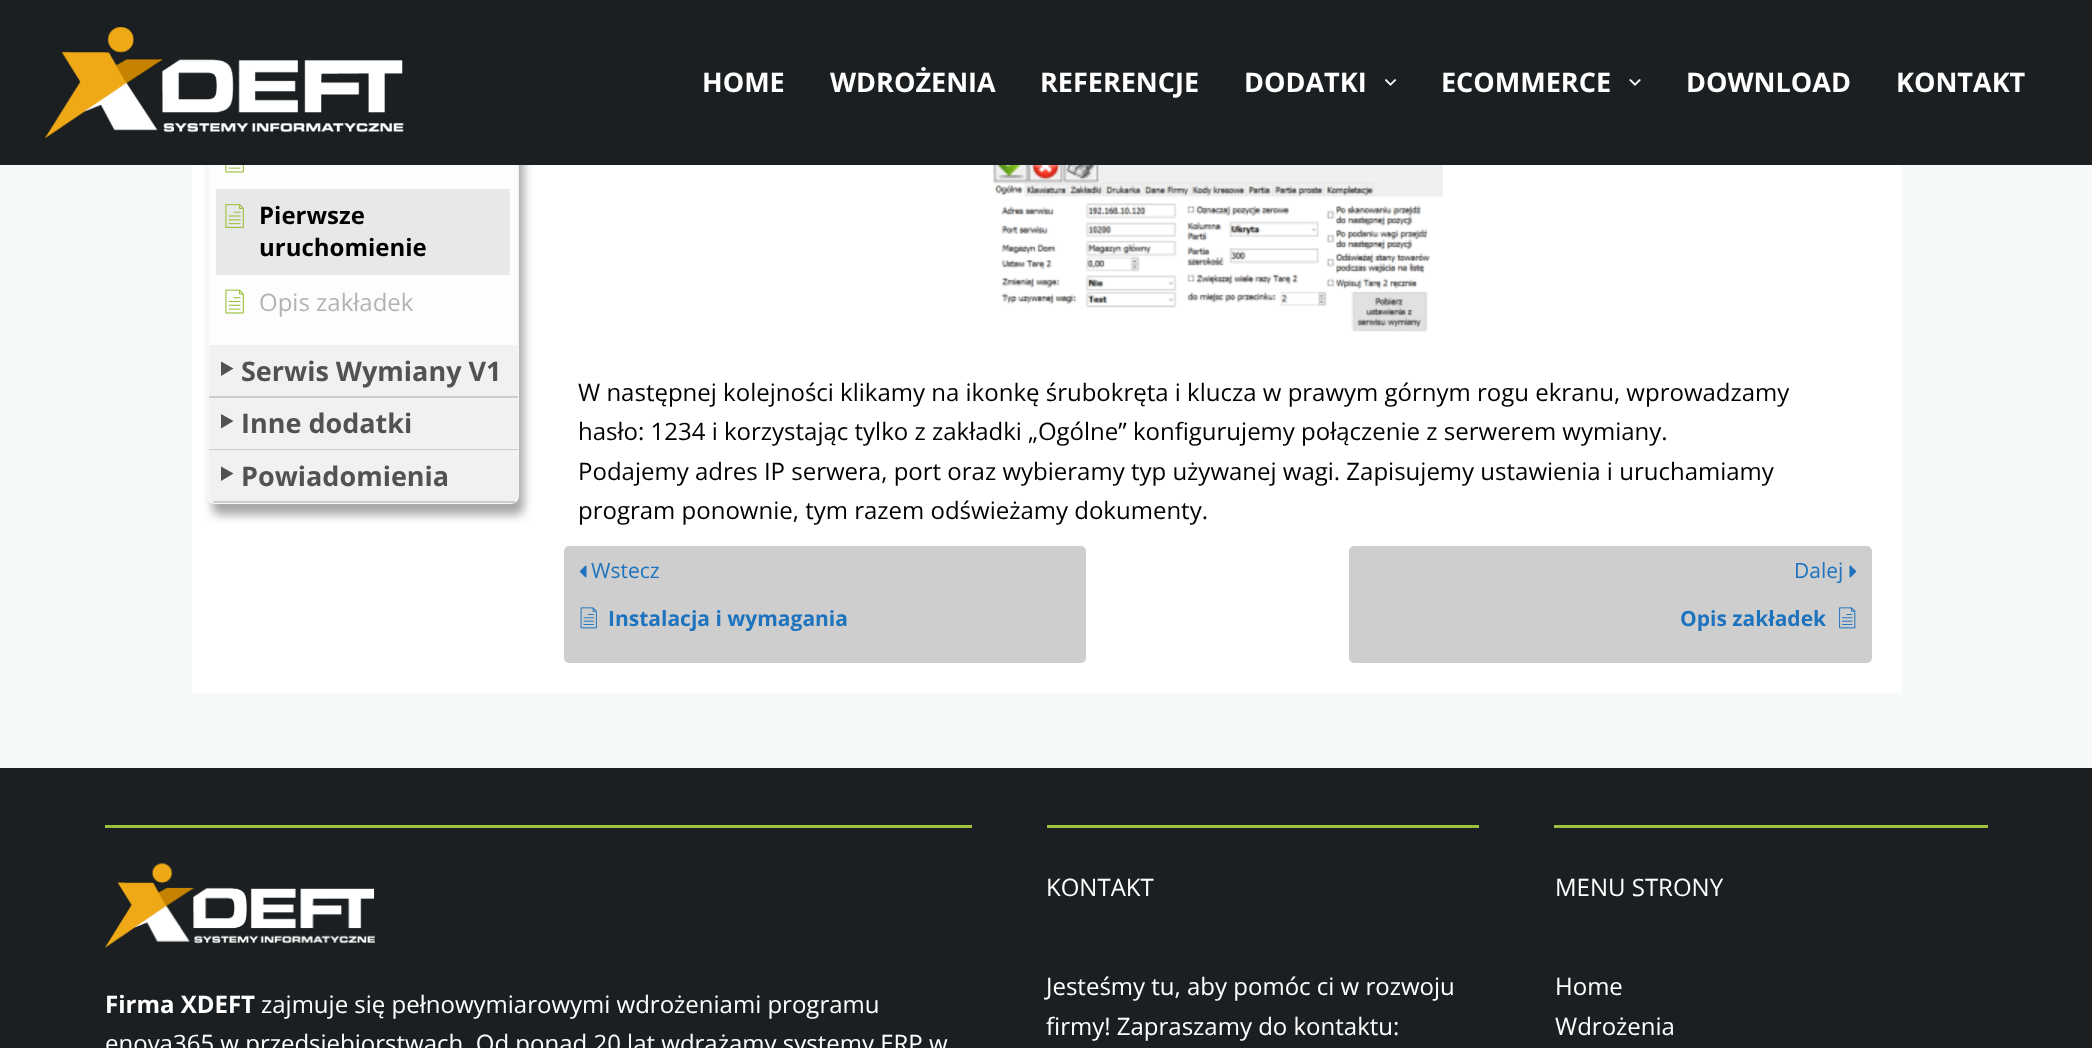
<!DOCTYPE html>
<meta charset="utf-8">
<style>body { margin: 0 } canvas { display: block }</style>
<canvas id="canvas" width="2092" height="1048"></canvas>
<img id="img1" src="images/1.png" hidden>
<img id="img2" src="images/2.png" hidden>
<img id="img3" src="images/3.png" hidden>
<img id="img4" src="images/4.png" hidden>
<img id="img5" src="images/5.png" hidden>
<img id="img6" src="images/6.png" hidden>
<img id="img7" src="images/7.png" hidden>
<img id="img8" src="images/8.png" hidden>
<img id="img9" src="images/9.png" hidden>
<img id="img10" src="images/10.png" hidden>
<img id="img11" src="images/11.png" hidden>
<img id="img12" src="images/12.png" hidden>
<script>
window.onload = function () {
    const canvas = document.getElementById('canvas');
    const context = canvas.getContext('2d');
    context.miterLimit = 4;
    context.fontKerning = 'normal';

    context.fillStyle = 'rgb(245, 249, 247)';
    context.fillRect(0, 0, 2092, 1048);
    context.fillStyle = 'rgb(255, 255, 255)';
    context.fillRect(192, 165, 342, 528);
    context.fillStyle = 'rgba(0, 0, 0, 0.34)';
    context.filter = 'blur(5px)';
    context.beginPath();
    context.roundRect(212, -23, 312, 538, 8);
    context.fill();
    context.filter = 'none';
    context.fillStyle = 'rgb(253, 253, 253)';
    context.beginPath();
    context.roundRect(208, -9, 310, 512, 7);
    context.fill();
    context.strokeStyle = 'rgb(247, 247, 247)';
    context.lineWidth = 2;
    context.stroke();
    context.fillStyle = 'rgb(27, 31, 33)';
    context.fillRect(0, 0, 2092, 165);
    context.drawImage(document.getElementById('img1'), 45, 27, 359, 112);
    context.drawImage(document.getElementById('img2'), 1385, 79, 12, 7);
    context.drawImage(document.getElementById('img3'), 1629, 79, 12, 7);
    context.drawImage(document.getElementById('img4'), 225, 165, 19, 8);
    context.fillStyle = 'rgb(232, 232, 232)';
    context.fillRect(216, 189, 294, 86);
    context.drawImage(document.getElementById('img5'), 225, 204, 19, 24);
    context.drawImage(document.getElementById('img6'), 225, 289, 19, 25);
    context.fillStyle = 'rgb(241, 241, 241)';
    context.fillRect(209, 345, 309, 51);
    context.fillStyle = 'rgb(205, 205, 205)';
    context.fillRect(209, 396, 309, 2);
    context.fillStyle = 'rgb(82, 82, 82)';
    context.beginPath();
    context.moveTo(221, 361.5);
    context.lineTo(233.5, 368.5);
    context.lineTo(221, 376);
    context.closePath();
    context.fill();
    context.fillStyle = 'rgb(241, 241, 241)';
    context.fillRect(209, 398, 309, 51);
    context.fillStyle = 'rgb(205, 205, 205)';
    context.fillRect(209, 449, 309, 1);
    context.fillStyle = 'rgb(82, 82, 82)';
    context.beginPath();
    context.moveTo(221, 414);
    context.lineTo(233.5, 421);
    context.lineTo(221, 428.5);
    context.closePath();
    context.fill();
    context.fillStyle = 'rgb(241, 241, 241)';
    context.beginPath();
    context.roundRect(209, 450, 309, 53, [0, 0, 8, 8]);
    context.fill();
    context.fillStyle = 'rgb(205, 205, 205)';
    context.fillRect(213, 501, 302, 2);
    context.fillStyle = 'rgb(82, 82, 82)';
    context.beginPath();
    context.moveTo(221, 466.5);
    context.lineTo(233.5, 473.5);
    context.lineTo(221, 481);
    context.closePath();
    context.fill();
    context.fillStyle = 'rgb(255, 255, 255)';
    context.fillRect(534, 165, 1368, 528);
    context.drawImage(document.getElementById('img7'), 993, 165, 450, 167);
    context.fillStyle = 'rgb(206, 206, 206)';
    context.beginPath();
    context.roundRect(564, 546, 522, 117, 5);
    context.fill();
    context.drawImage(document.getElementById('img8'), 579, 565, 8, 13);
    context.drawImage(document.getElementById('img9'), 580, 607, 17, 22);
    context.beginPath();
    context.roundRect(1349, 546, 523, 117, 5);
    context.fill();
    context.drawImage(document.getElementById('img10'), 1849, 565, 8, 13);
    context.drawImage(document.getElementById('img11'), 1839, 607, 17, 22);
    context.fillStyle = 'rgb(27, 31, 33)';
    context.fillRect(0, 768, 2092, 280);
    context.fillStyle = 'rgb(157, 193, 62)';
    context.fillRect(105, 825, 867, 3);
    context.drawImage(document.getElementById('img12'), 105, 863, 270, 85);
    context.fillRect(1047, 825, 432, 3);
    context.fillRect(1554, 825, 434, 3);
    context.font = 'bold 27px Open Sans';
    context.fillStyle = 'rgb(255, 255, 255)';
    context.fillText('HOME', 702, 92);
    context.fillText('WDROŻENIA', 830, 92);
    context.fillText('REFERENCJE', 1040, 92);
    context.fillText('DODATKI', 1244, 92);
    context.fillText('ECOMMERCE', 1441, 92);
    context.fillText('DOWNLOAD', 1686, 92);
    context.fillText('KONTAKT', 1896, 92);
    context.font = 'bold 24px Open Sans';
    context.fillStyle = 'rgb(0, 0, 0)';
    context.fillText('Pierwsze', 259, 224);
    context.fillText('uruchomienie', 259, 256);
    context.font = '24px Open Sans';
    context.fillStyle = 'rgb(179, 179, 179)';
    context.fillText('Opis zakładek', 259, 311);
    context.font = 'bold 27px Open Sans';
    context.fillStyle = 'rgb(82, 82, 82)';
    context.fillText('Serwis Wymiany V1', 241, 381);
    context.fillText('Inne dodatki', 241, 433);
    context.fillText('Powiadomienia', 241, 486);
    context.font = '24px Open Sans';
    context.fillStyle = 'rgb(0, 0, 0)';
    context.fillText('W następnej kolejności klikamy na ikonkę śrubokręta i klucza w prawym górnym rogu ekranu, wprowadzamy', 578, 401);
    context.fillText('hasło: 1234 i korzystając tylko z zakładki „Ogólne” konfigurujemy połączenie z serwerem wymiany.', 578, 440);
    context.fillText('Podajemy adres IP serwera, port oraz wybieramy typ używanej wagi. Zapisujemy ustawienia i uruchamiamy', 578, 480);
    context.fillText('program ponownie, tym razem odświeżamy dokumenty.', 578, 519);
    context.font = '21px Open Sans';
    context.fillStyle = 'rgb(30, 115, 190)';
    context.fillText('Wstecz', 591, 578);
    context.font = 'bold 21px Open Sans';
    context.fillText('Instalacja i wymagania', 608, 626);
    context.font = '21px Open Sans';
    context.fillText('Dalej', 1794, 578);
    context.font = 'bold 21px Open Sans';
    context.fillText('Opis zakładek', 1680, 626);
    context.font = 'bold 24px Open Sans';
    context.fillStyle = 'rgb(255, 255, 255)';
    context.fillText('Firma XDEFT', 105, 1013);
    context.font = '24px Open Sans';
    context.fillText('zajmuje się pełnowymiarowymi wdrożeniami programu', 261, 1013);
    context.fillText('enova365 w przedsiębiorstwach. Od ponad 20 lat wdrażamy systemy ERP w', 105, 1052);
    context.fillText('KONTAKT', 1046, 896);
    context.fillText('Jesteśmy tu, aby pomóc ci w rozwoju', 1046, 995);
    context.fillText('firmy! Zapraszamy do kontaktu:', 1046, 1035);
    context.fillText('MENU STRONY', 1555, 896);
    context.fillText('Home', 1555, 995);
    context.fillText('Wdrożenia', 1555, 1035);
};
</script>
